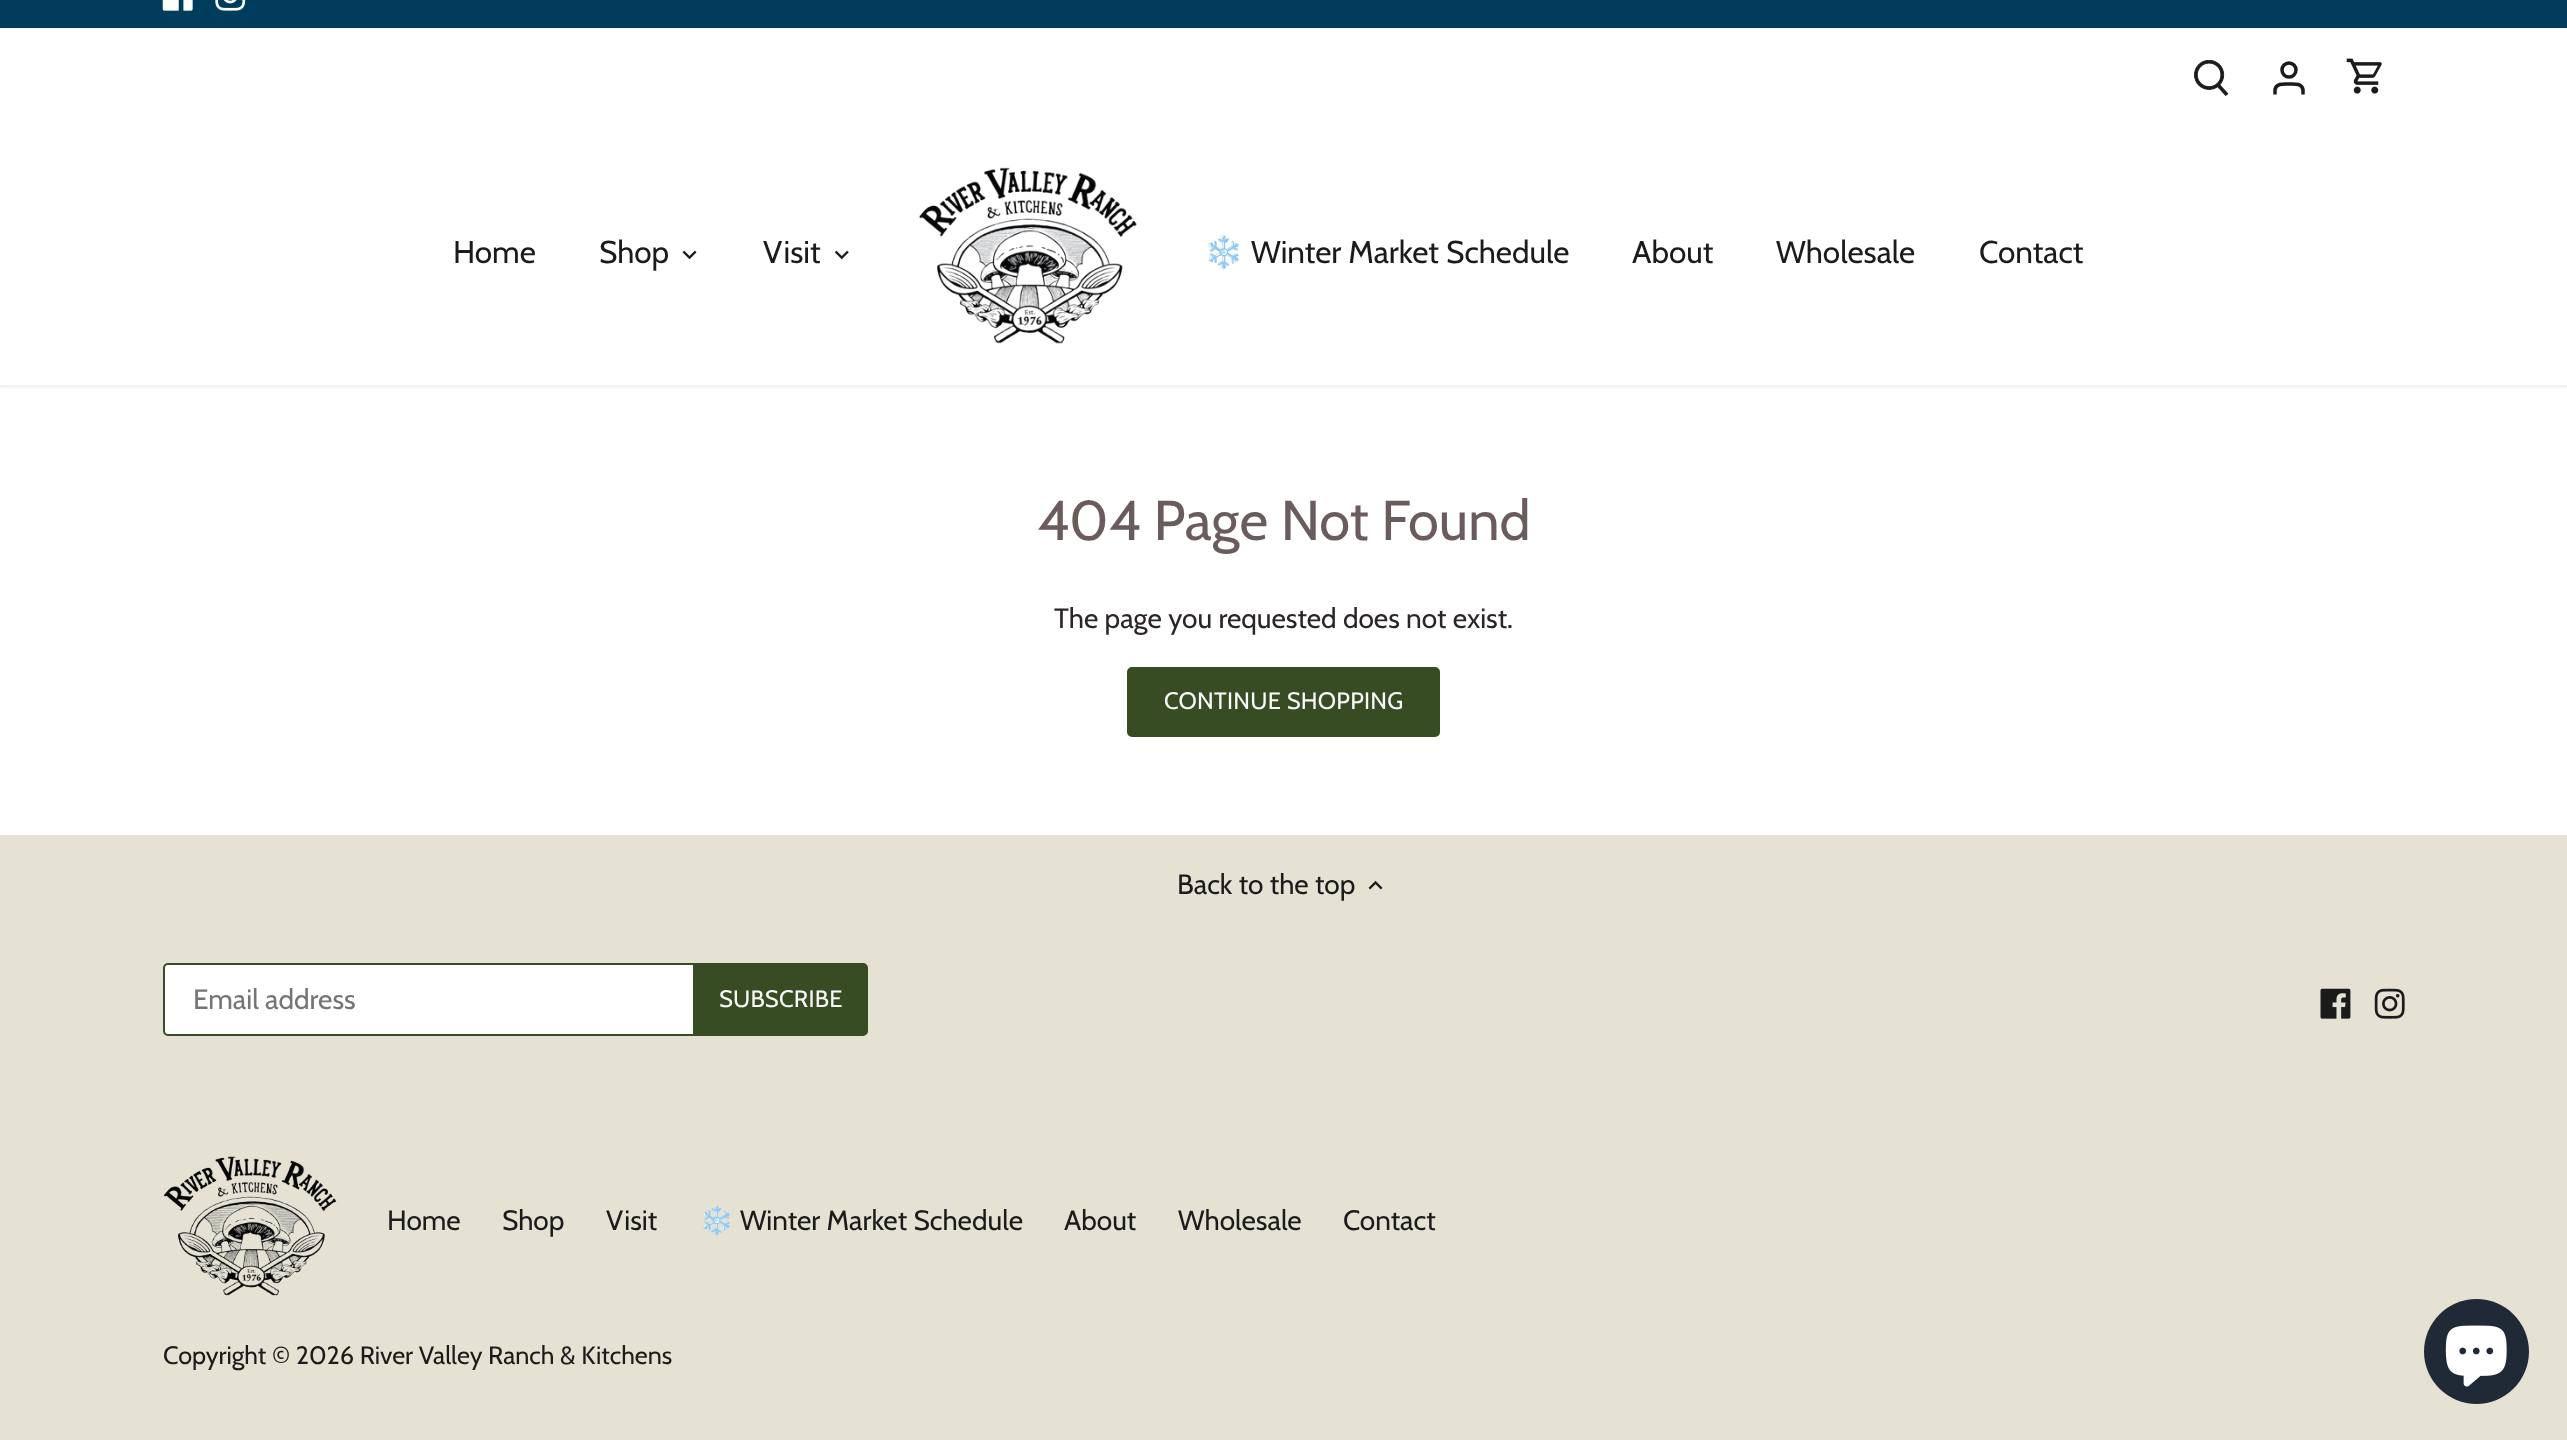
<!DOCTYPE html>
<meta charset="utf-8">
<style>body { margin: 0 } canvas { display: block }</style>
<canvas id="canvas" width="2567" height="1440"></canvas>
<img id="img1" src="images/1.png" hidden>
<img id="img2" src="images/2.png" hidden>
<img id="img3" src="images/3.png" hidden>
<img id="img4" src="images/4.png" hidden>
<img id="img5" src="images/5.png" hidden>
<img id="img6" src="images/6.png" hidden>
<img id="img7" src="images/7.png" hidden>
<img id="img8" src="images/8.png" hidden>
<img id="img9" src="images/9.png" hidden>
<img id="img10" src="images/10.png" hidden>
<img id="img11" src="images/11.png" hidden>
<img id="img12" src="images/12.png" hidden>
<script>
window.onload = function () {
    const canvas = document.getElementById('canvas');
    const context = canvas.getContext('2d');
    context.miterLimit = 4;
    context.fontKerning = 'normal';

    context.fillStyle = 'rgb(229, 226, 212)';
    context.fillRect(0, 0, 2567, 1440);
    context.fillStyle = 'rgb(255, 255, 255)';
    context.fillRect(0, 28, 2567, 807);
    context.save();
    context.beginPath();
    context.rect(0, 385, 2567, 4);
    context.clip();
    context.fillStyle = 'rgba(0, 0, 0, 0.08)';
    context.filter = 'blur(2.5px)';
    context.beginPath();
    context.rect(-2, 26, 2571, 361);
    context.fill();
    context.filter = 'none';
    context.restore();
    context.fillStyle = 'rgb(0, 61, 92)';
    context.fillRect(0, 0, 2567, 28);
    context.drawImage(document.getElementById('img1'), 162, 0, 31, 11);
    context.drawImage(document.getElementById('img2'), 215, 0, 31, 11);
    context.drawImage(document.getElementById('img3'), 2194, 60, 35, 36);
    context.beginPath();
    context.arc(2289, 70, 7, 0, 2 * Math.PI);
    context.strokeStyle = 'rgb(27, 27, 27)';
    context.lineWidth = 3.5;
    context.stroke();
    context.beginPath();
    context.moveTo(2303, 94.5);
    context.lineTo(2303, 89.5);
    context.bezierCurveTo(2301.5, 83, 2294, 84, 2289, 84);
    context.bezierCurveTo(2284, 84, 2276.5, 83, 2275, 89.5);
    context.lineTo(2275, 94.5);
    context.stroke();
    context.drawImage(document.getElementById('img4'), 2346, 58, 36, 36);
    context.drawImage(document.getElementById('img5'), 682, 250, 15, 10);
    context.drawImage(document.getElementById('img6'), 834, 250, 15, 10);
    context.drawImage(document.getElementById('img7'), 918, 167, 219, 177);
    context.fillStyle = 'rgb(55, 76, 35)';
    context.beginPath();
    context.roundRect(1129, 669, 309, 66, 3);
    context.fill();
    context.strokeStyle = 'rgb(55, 76, 35)';
    context.lineWidth = 4;
    context.stroke();
    context.drawImage(document.getElementById('img8'), 1368, 880, 15, 10);
    context.fillStyle = 'rgb(255, 255, 255)';
    context.beginPath();
    context.roundRect(164, 964, 701, 71, 4);
    context.fill();
    context.lineWidth = 2;
    context.stroke();
    context.fillStyle = 'rgb(55, 76, 35)';
    context.beginPath();
    context.roundRect(694, 964, 173, 71, [0, 4, 4, 0]);
    context.fill();
    context.stroke();
    context.drawImage(document.getElementById('img9'), 2320, 988, 31, 31);
    context.drawImage(document.getElementById('img10'), 2374, 988, 31, 31);
    context.drawImage(document.getElementById('img11'), 163, 1156, 174, 140);
    context.fillStyle = 'rgb(32, 42, 54)';
    context.beginPath();
    context.arc(2476.5, 1351.5, 52.5, 0, 2 * Math.PI);
    context.fill();
    context.drawImage(document.getElementById('img12'), 2445, 1325, 62, 62);
    context.font = '31.5px Cabin';
    context.fillStyle = 'rgb(27, 27, 27)';
    context.fillText('Home', 453, 263);
    context.fillText('Shop', 599, 263);
    context.fillText('Visit', 763, 263);
    context.font = '31.5px Noto Color Emoji';
    context.fillText('❄️', 1204, 263);
    context.font = '31.5px Cabin';
    context.fillText('Winter Market Schedule', 1251, 263);
    context.fillText('About', 1632, 263);
    context.fillText('Wholesale', 1776, 263);
    context.fillText('Contact', 1979, 263);
    context.font = '56px Cabin';
    context.fillStyle = 'rgb(106, 91, 92)';
    context.fillText('404 Page Not Found', 1037, 540);
    context.font = '28px Cabin';
    context.fillStyle = 'rgb(44, 37, 40)';
    context.fillText('The page you requested does not exist.', 1054, 628);
    context.letterSpacing = '0.25px';
    context.font = '23.75px Cabin';
    context.fillStyle = 'rgb(250, 250, 250)';
    context.fillText('CONTINUE SHOPPING', 1164, 709);
    context.letterSpacing = '0px';
    context.font = '28px Cabin';
    context.fillStyle = 'rgb(27, 27, 27)';
    context.fillText('Back to the top', 1177, 894);
    context.fillStyle = 'rgb(117, 117, 117)';
    context.fillText('Email address', 193, 1009);
    context.letterSpacing = '0.25px';
    context.font = '23.75px Cabin';
    context.fillStyle = 'rgb(250, 250, 250)';
    context.fillText('SUBSCRIBE', 719, 1007);
    context.letterSpacing = '0px';
    context.font = '28px Cabin';
    context.fillStyle = 'rgb(27, 27, 27)';
    context.fillText('Home', 387, 1230);
    context.fillText('Shop', 502, 1230);
    context.fillText('Visit', 606, 1230);
    context.font = '28px Noto Color Emoji';
    context.fillText('❄️', 699, 1230);
    context.font = '28px Cabin';
    context.fillText('Winter Market Schedule', 740, 1230);
    context.fillText('About', 1064, 1230);
    context.fillText('Wholesale', 1178, 1230);
    context.fillText('Contact', 1343, 1230);
    context.font = '25.2px Cabin';
    context.fillText('Copyright © 2026 River Valley Ranch & Kitchens', 163, 1364);
};
</script>
